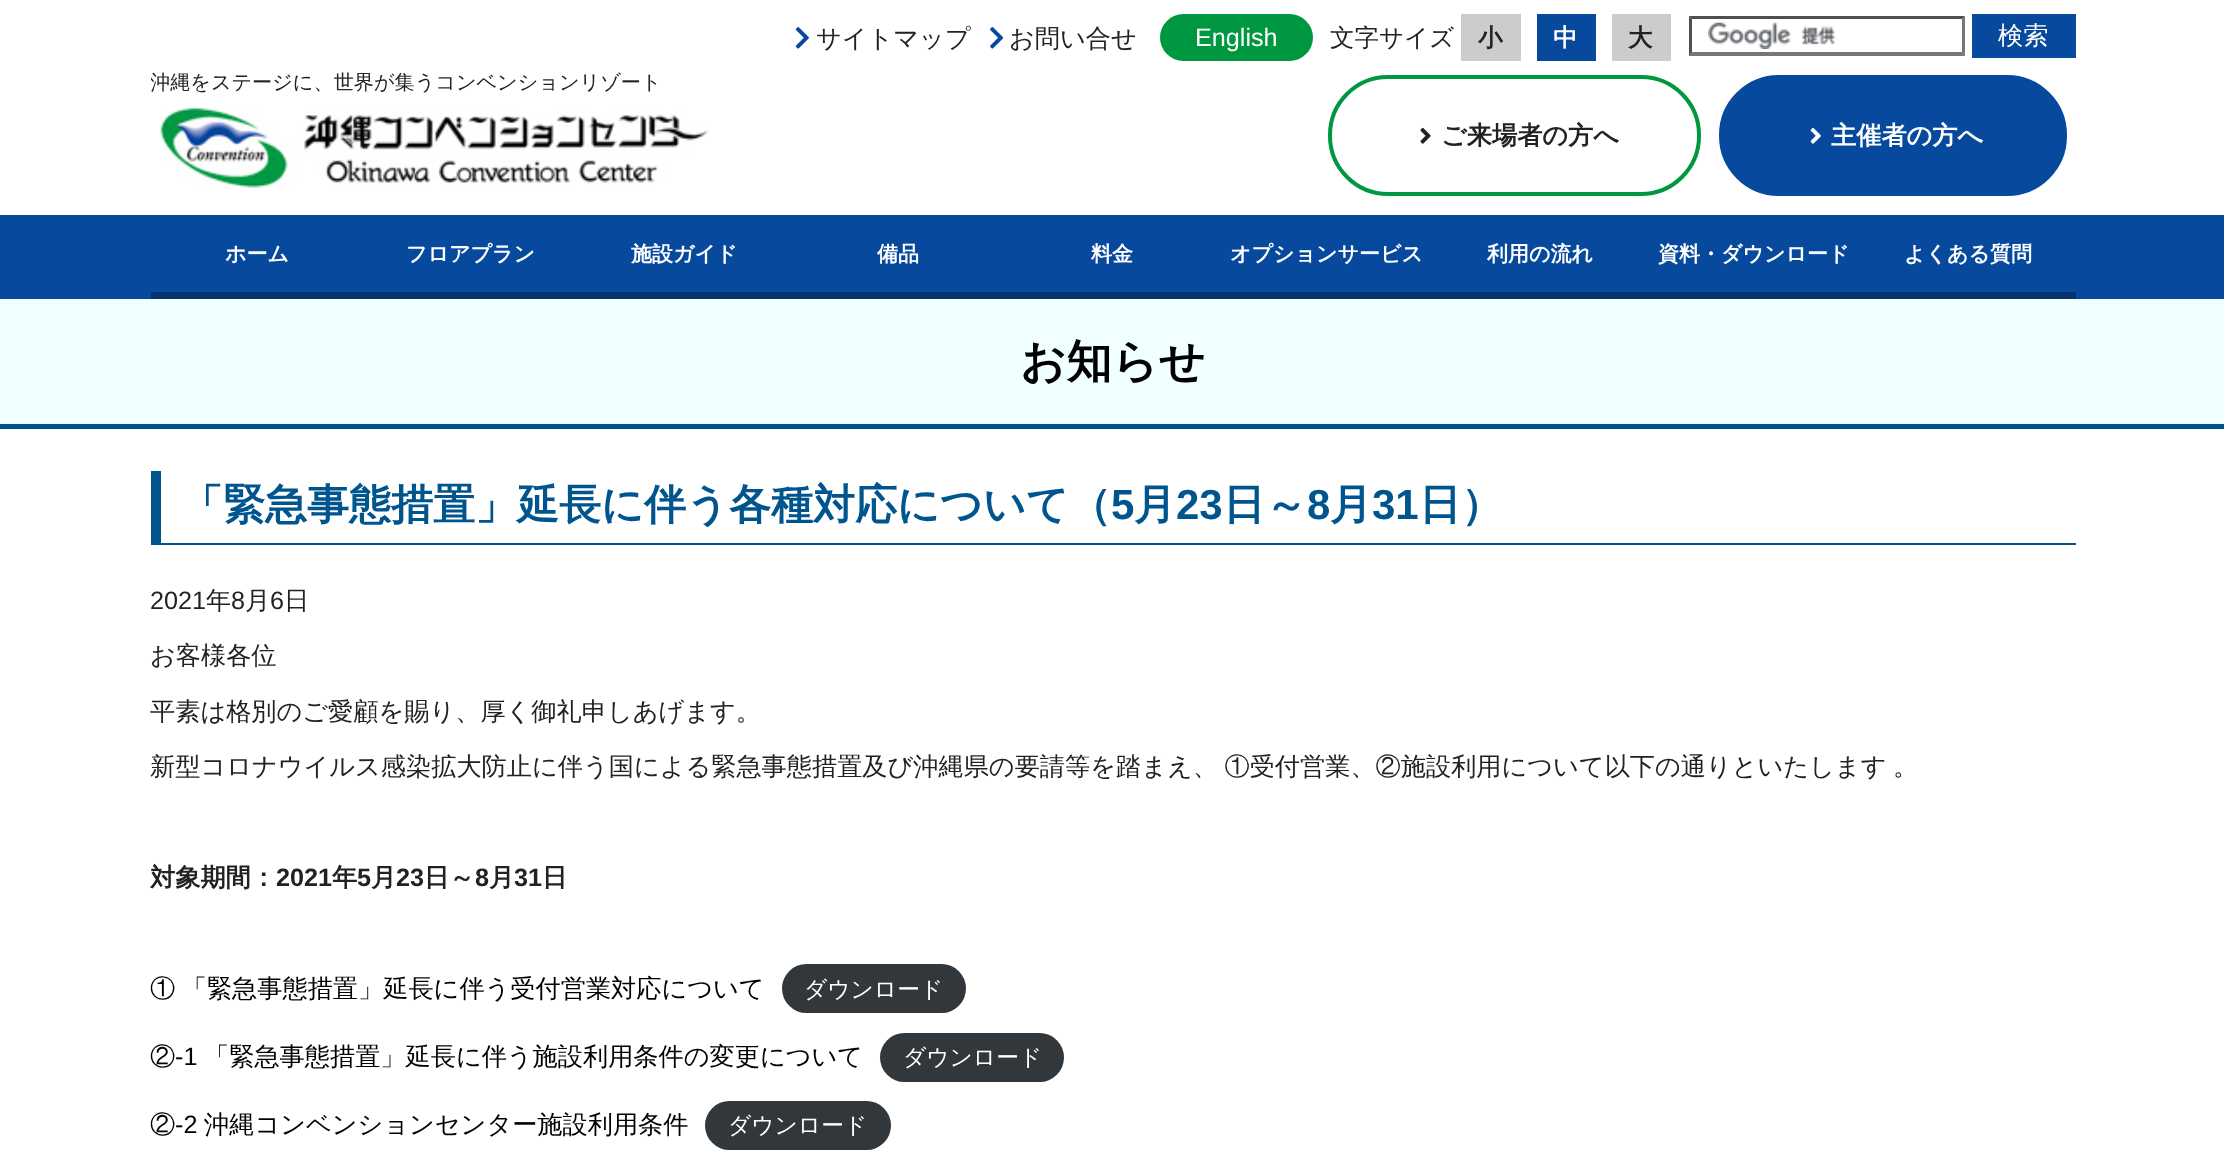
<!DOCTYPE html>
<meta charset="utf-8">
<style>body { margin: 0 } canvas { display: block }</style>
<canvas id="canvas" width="2224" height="1158"></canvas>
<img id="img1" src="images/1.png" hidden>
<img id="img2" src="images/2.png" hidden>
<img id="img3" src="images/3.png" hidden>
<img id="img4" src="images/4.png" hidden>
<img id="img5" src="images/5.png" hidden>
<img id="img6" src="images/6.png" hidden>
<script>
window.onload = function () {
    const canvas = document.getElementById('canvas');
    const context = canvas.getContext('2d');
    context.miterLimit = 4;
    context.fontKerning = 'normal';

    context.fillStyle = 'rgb(255, 255, 255)';
    context.fillRect(0, 0, 2224, 1158);
    context.drawImage(document.getElementById('img1'), 795, 27, 14, 22);
    context.drawImage(document.getElementById('img2'), 990, 27, 14, 22);
    context.fillStyle = 'rgb(0, 151, 65)';
    context.beginPath();
    context.roundRect(1160, 14, 153, 47, 23.5);
    context.fill();
    context.fillStyle = 'rgb(204, 204, 204)';
    context.fillRect(1461, 14, 60, 47);
    context.fillStyle = 'rgb(7, 73, 157)';
    context.fillRect(1537, 14, 59, 47);
    context.fillStyle = 'rgb(204, 204, 204)';
    context.fillRect(1612, 14, 59, 47);
    context.drawImage(document.getElementById('img3'), 1708, 22, 128, 27);
    context.fillStyle = 'rgb(79, 79, 79)';
    context.beginPath();
    context.moveTo(1689, 16);
    context.lineTo(1965, 16);
    context.lineTo(1962, 19);
    context.lineTo(1692, 19);
    context.closePath();
    context.fill();
    context.fillStyle = 'rgb(118, 118, 118)';
    context.beginPath();
    context.moveTo(1965, 16);
    context.lineTo(1965, 56);
    context.lineTo(1962, 52);
    context.lineTo(1962, 19);
    context.closePath();
    context.fill();
    context.beginPath();
    context.moveTo(1965, 56);
    context.lineTo(1689, 56);
    context.lineTo(1692, 52);
    context.lineTo(1962, 52);
    context.closePath();
    context.fill();
    context.fillStyle = 'rgb(79, 79, 79)';
    context.beginPath();
    context.moveTo(1689, 56);
    context.lineTo(1689, 16);
    context.lineTo(1692, 19);
    context.lineTo(1692, 52);
    context.closePath();
    context.fill();
    context.fillStyle = 'rgb(7, 73, 157)';
    context.fillRect(1972, 14, 104, 44);
    context.drawImage(document.getElementById('img4'), 160, 108, 549, 80);
    context.beginPath();
    context.roundRect(1330, 77, 369, 117, 58);
    context.strokeStyle = 'rgb(0, 151, 65)';
    context.lineWidth = 4;
    context.stroke();
    context.drawImage(document.getElementById('img5'), 1420, 127, 11, 17);
    context.beginPath();
    context.roundRect(1721, 77, 344, 117, 58);
    context.fill();
    context.strokeStyle = 'rgb(7, 73, 157)';
    context.stroke();
    context.drawImage(document.getElementById('img6'), 1810, 128, 11, 16);
    context.fillRect(0, 215, 2224, 84);
    context.fillStyle = 'rgb(4, 51, 109)';
    context.fillRect(151, 292, 1925, 7);
    context.fillStyle = 'rgb(240, 255, 255)';
    context.fillRect(0, 299, 2224, 125);
    context.fillStyle = 'rgb(0, 85, 143)';
    context.fillRect(0, 424, 2224, 5);
    context.fillRect(151, 543, 1925, 2);
    context.fillRect(151, 471, 10, 72);
    context.fillStyle = 'rgb(50, 55, 60)';
    context.beginPath();
    context.roundRect(782, 964, 184, 49, 24.5);
    context.fill();
    context.beginPath();
    context.roundRect(880, 1033, 184, 49, 24.5);
    context.fill();
    context.beginPath();
    context.roundRect(705, 1101, 186, 49, 24.5);
    context.fill();
    context.font = '500 25.2px WenQuanYi Zen Hei';
    context.fillStyle = 'rgb(34, 34, 34)';
    context.fillText('サイトマップ', 816, 47);
    context.fillText('お問い合せ', 1009, 47);
    context.font = '25.2px Liberation Sans';
    context.fillStyle = 'rgb(255, 255, 255)';
    context.fillText('English', 1195, 46);
    context.font = '500 24.5px WenQuanYi Zen Hei';
    context.fillStyle = 'rgb(34, 34, 34)';
    context.fillText('文字サイズ', 1330, 46);
    context.font = 'bold 24.5px WenQuanYi Zen Hei';
    context.fillText('小', 1478, 46);
    context.fillStyle = 'rgb(255, 255, 255)';
    context.fillText('中', 1553, 46);
    context.fillStyle = 'rgb(34, 34, 34)';
    context.fillText('大', 1628, 46);
    context.font = '500 25.2px WenQuanYi Zen Hei';
    context.fillStyle = 'rgb(255, 255, 255)';
    context.fillText('検索', 1998, 44);
    context.save();
    context.beginPath();
    context.rect(151, 67, 1925, 148);
    context.clip();
    context.font = '500 20.15px WenQuanYi Zen Hei';
    context.fillStyle = 'rgb(34, 34, 34)';
    context.fillText('沖縄をステージに、世界が集うコンベンションリゾート', 150, 89);
    context.restore();
    context.font = 'bold 25.2px WenQuanYi Zen Hei';
    context.fillStyle = 'rgb(34, 34, 34)';
    context.fillText('ご来場者の方へ', 1441, 144);
    context.fillStyle = 'rgb(255, 255, 255)';
    context.fillText('主催者の方へ', 1831, 144);
    context.font = 'bold 21px WenQuanYi Zen Hei';
    context.fillText('ホーム', 225, 261);
    context.fillText('フロアプラン', 406, 261);
    context.fillText('施設ガイド', 631, 261);
    context.fillText('備品', 877, 261);
    context.fillText('料金', 1091, 261);
    context.fillText('オプションサービス', 1230, 261);
    context.fillText('利用の流れ', 1487, 261);
    context.fillText('資料・ダウンロード', 1658, 261);
    context.fillText('よくある質問', 1904, 261);
    context.font = 'bold 45.5px WenQuanYi Zen Hei';
    context.fillStyle = 'rgb(0, 0, 0)';
    context.fillText('お知らせ', 1020, 377);
    context.font = 'bold 42px WenQuanYi Zen Hei';
    context.fillStyle = 'rgb(0, 85, 143)';
    context.fillText('「緊急事態措置」延長に伴う各種対応について（', 181, 519);
    context.font = 'bold 42px Liberation Sans';
    context.fillText('5', 1111, 519);
    context.font = 'bold 42px WenQuanYi Zen Hei';
    context.fillText('月', 1134, 519);
    context.font = 'bold 42px Liberation Sans';
    context.fillText('23', 1176, 519);
    context.font = 'bold 42px WenQuanYi Zen Hei';
    context.fillText('日～', 1223, 519);
    context.font = 'bold 42px Liberation Sans';
    context.fillText('8', 1307, 519);
    context.font = 'bold 42px WenQuanYi Zen Hei';
    context.fillText('月', 1330, 519);
    context.font = 'bold 42px Liberation Sans';
    context.fillText('31', 1372, 519);
    context.font = 'bold 42px WenQuanYi Zen Hei';
    context.fillText('日）', 1419, 519);
    context.font = '25.2px Liberation Sans';
    context.fillStyle = 'rgb(34, 34, 34)';
    context.fillText('2021', 150, 609);
    context.font = '500 25.2px WenQuanYi Zen Hei';
    context.fillText('年', 206, 609);
    context.font = '25.2px Liberation Sans';
    context.fillText('8', 231, 609);
    context.font = '500 25.2px WenQuanYi Zen Hei';
    context.fillText('月', 245, 609);
    context.font = '25.2px Liberation Sans';
    context.fillText('6', 270, 609);
    context.font = '500 25.2px WenQuanYi Zen Hei';
    context.fillText('日', 284, 609);
    context.fillText('お客様各位', 150, 664);
    context.fillText('平素は格別のご愛顧を賜り、厚く御礼申しあげます。', 150, 720);
    context.wordSpacing = '-1px';
    context.fillText('新型コロナウイルス感染拡大防止に伴う国による緊急事態措置及び沖縄県の要請等を踏まえ、 ①受付営業、②施設利用について以下の通りといたします 。', 150, 775);
    context.wordSpacing = '0px';
    context.font = 'bold 25.2px WenQuanYi Zen Hei';
    context.fillText('対象期間：', 150, 886);
    context.font = 'bold 25.2px Liberation Sans';
    context.fillText('2021', 276, 886);
    context.font = 'bold 25.2px WenQuanYi Zen Hei';
    context.fillText('年', 332, 886);
    context.font = 'bold 25.2px Liberation Sans';
    context.fillText('5', 357, 886);
    context.font = 'bold 25.2px WenQuanYi Zen Hei';
    context.fillText('月', 371, 886);
    context.font = 'bold 25.2px Liberation Sans';
    context.fillText('23', 396, 886);
    context.font = 'bold 25.2px WenQuanYi Zen Hei';
    context.fillText('日～', 424, 886);
    context.font = 'bold 25.2px Liberation Sans';
    context.fillText('8', 475, 886);
    context.font = 'bold 25.2px WenQuanYi Zen Hei';
    context.fillText('月', 489, 886);
    context.font = 'bold 25.2px Liberation Sans';
    context.fillText('31', 514, 886);
    context.font = 'bold 25.2px WenQuanYi Zen Hei';
    context.fillText('日', 542, 886);
    context.wordSpacing = '-1px';
    context.font = '500 25.2px WenQuanYi Zen Hei';
    context.fillStyle = 'rgb(0, 0, 0)';
    context.fillText('① 「緊急事態措置」延長に伴う受付営業対応について', 150, 997);
    context.wordSpacing = '0px';
    context.font = '500 22.75px WenQuanYi Zen Hei';
    context.fillStyle = 'rgb(255, 255, 255)';
    context.fillText('ダウンロード', 804, 997);
    context.font = '500 25.2px WenQuanYi Zen Hei';
    context.fillStyle = 'rgb(0, 0, 0)';
    context.fillText('②', 150, 1065);
    context.font = '25.2px Liberation Sans';
    context.fillText('-1', 175, 1065);
    context.font = '500 25.2px WenQuanYi Zen Hei';
    context.fillText('「緊急事態措置」延長に伴う施設利用条件の変更について', 204, 1065);
    context.font = '500 22.75px WenQuanYi Zen Hei';
    context.fillStyle = 'rgb(255, 255, 255)';
    context.fillText('ダウンロード', 903, 1065);
    context.font = '500 25.2px WenQuanYi Zen Hei';
    context.fillStyle = 'rgb(0, 0, 0)';
    context.fillText('②', 150, 1133);
    context.font = '25.2px Liberation Sans';
    context.fillText('-2', 175, 1133);
    context.font = '500 25.2px WenQuanYi Zen Hei';
    context.fillText('沖縄コンベンションセンター施設利用条件', 204, 1133);
    context.font = '500 22.75px WenQuanYi Zen Hei';
    context.fillStyle = 'rgb(255, 255, 255)';
    context.fillText('ダウンロード', 728, 1133);
};
</script>
